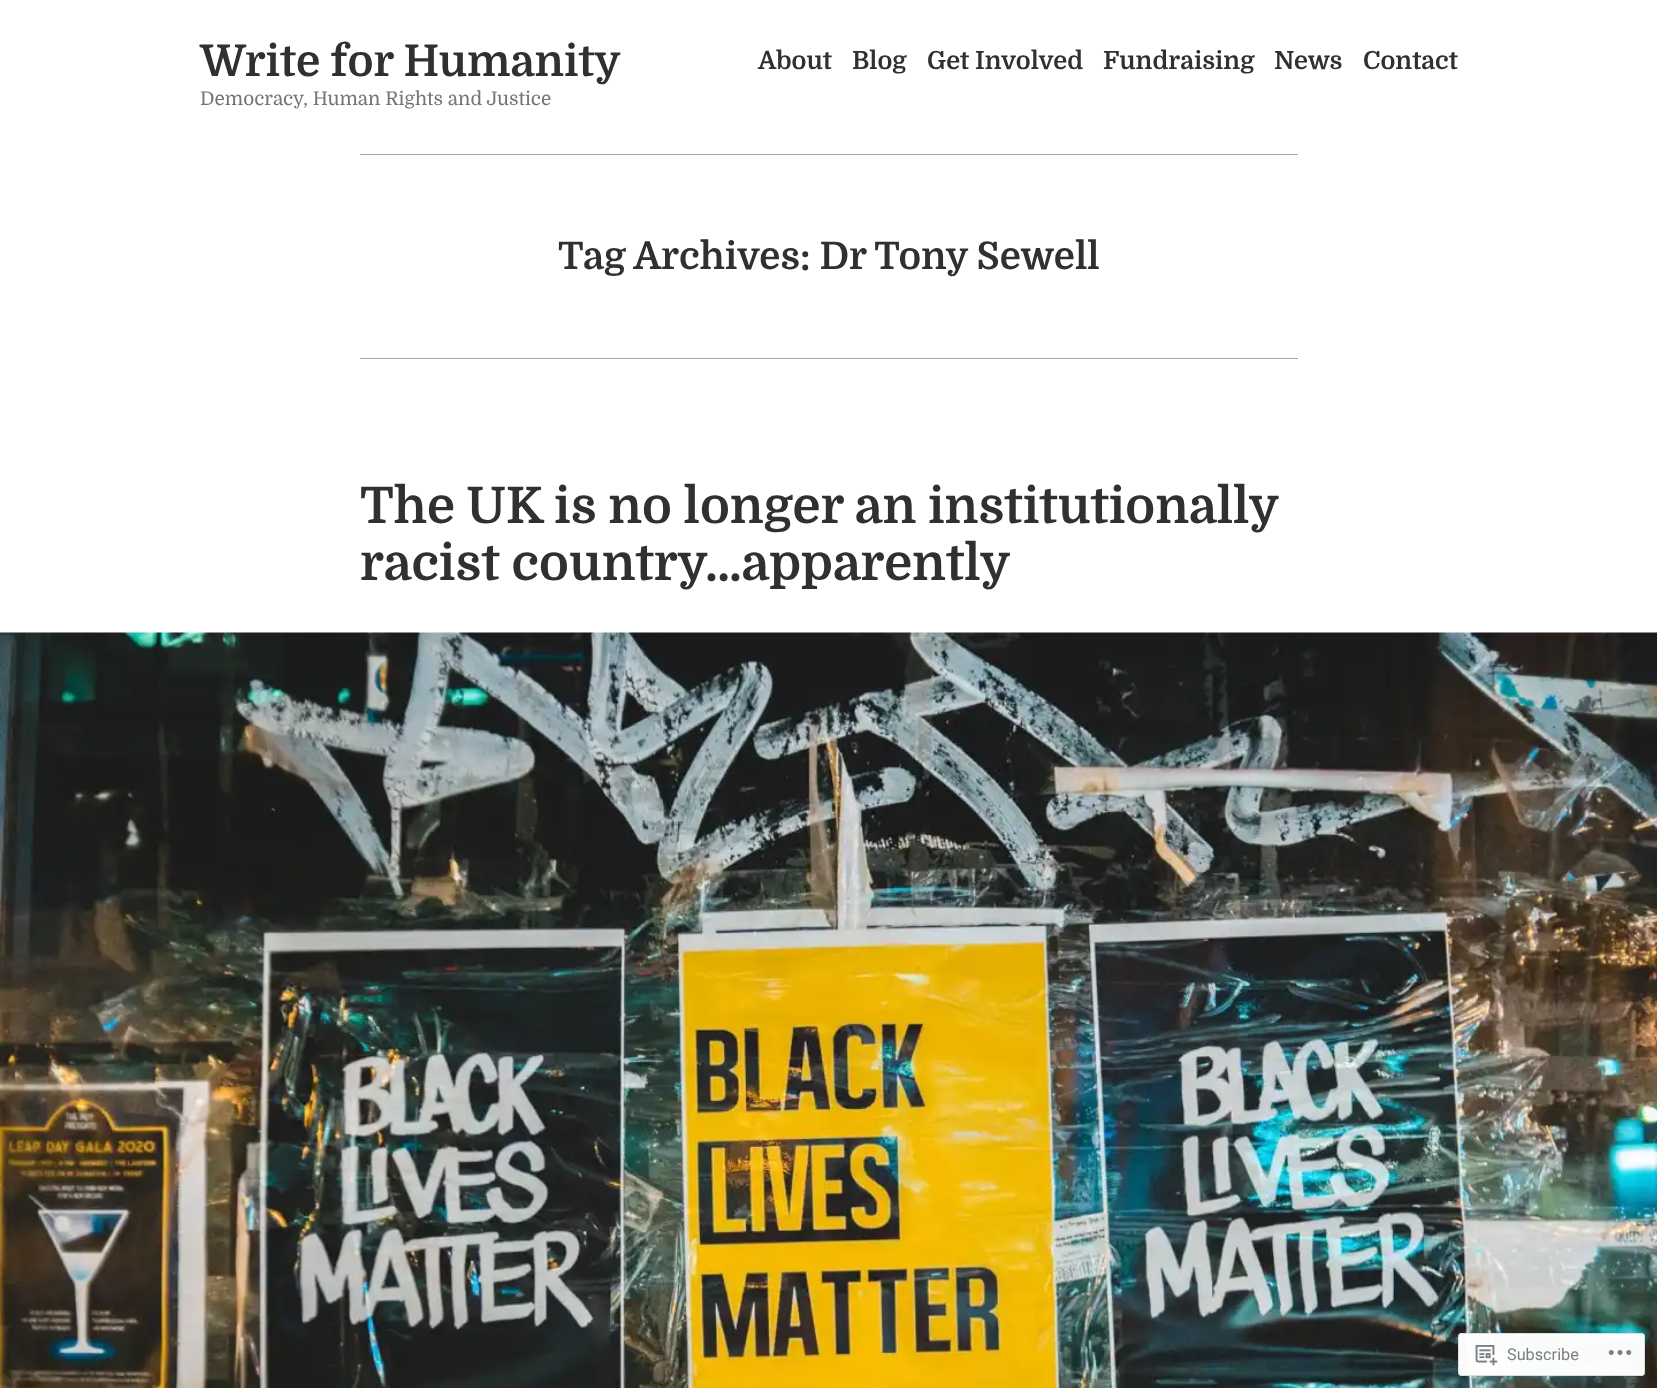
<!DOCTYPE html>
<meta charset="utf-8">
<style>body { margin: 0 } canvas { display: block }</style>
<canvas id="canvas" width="1657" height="1388"></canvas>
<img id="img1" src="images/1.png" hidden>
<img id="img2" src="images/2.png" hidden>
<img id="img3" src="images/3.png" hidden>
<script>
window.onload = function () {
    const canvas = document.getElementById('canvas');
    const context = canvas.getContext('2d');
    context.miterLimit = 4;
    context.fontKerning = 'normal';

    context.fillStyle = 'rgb(255, 255, 255)';
    context.fillRect(0, 0, 1657, 1388);
    context.fillStyle = 'rgb(165, 165, 165)';
    context.fillRect(360, 154, 938, 1);
    context.fillRect(360, 358, 938, 1);
    context.drawImage(document.getElementById('img1'), 0, 632, 1657, 756);
    context.fillStyle = 'rgba(255, 255, 255, 0.98)';
    context.beginPath();
    context.roundRect(1458, 1333, 187, 43, 4);
    context.fill();
    context.beginPath();
    context.roundRect(1458.5, 1333.5, 186, 42, 3.5);
    context.strokeStyle = 'rgba(220, 220, 222, 0.98)';
    context.stroke();
    context.drawImage(document.getElementById('img2'), 1475, 1345, 23, 21);
    context.drawImage(document.getElementById('img3'), 1608, 1350, 24, 5);
    context.font = 'bold 43.75px Domine';
    context.fillStyle = 'rgb(48, 48, 48)';
    context.fillText('Write for Humanity', 200, 76);
    context.font = 'bold 25px Domine';
    context.fillText('About', 758, 69);
    context.fillText('Blog', 852, 69);
    context.fillText('Get Involved', 927, 69);
    context.fillText('Fundraising', 1103, 69);
    context.fillText('News', 1274, 69);
    context.fillText('Contact', 1363, 69);
    context.font = '18.9px Domine';
    context.fillStyle = 'rgb(117, 117, 117)';
    context.fillText('Democracy, Human Rights and Justice', 200, 105);
    context.font = 'bold 38px Domine';
    context.fillStyle = 'rgb(48, 48, 48)';
    context.fillText('Tag Archives: Dr Tony Sewell', 558, 269);
    context.wordSpacing = '-0.25px';
    context.font = 'bold 50.25px Domine';
    context.fillText('The UK is no longer an institutionally', 360, 523);
    context.wordSpacing = '0px';
    context.fillText('racist country…apparently', 360, 580);
    context.font = '16.25px Roboto';
    context.fillStyle = 'rgb(123, 127, 132)';
    context.fillText('Subscribe', 1507, 1360);
};
</script>
